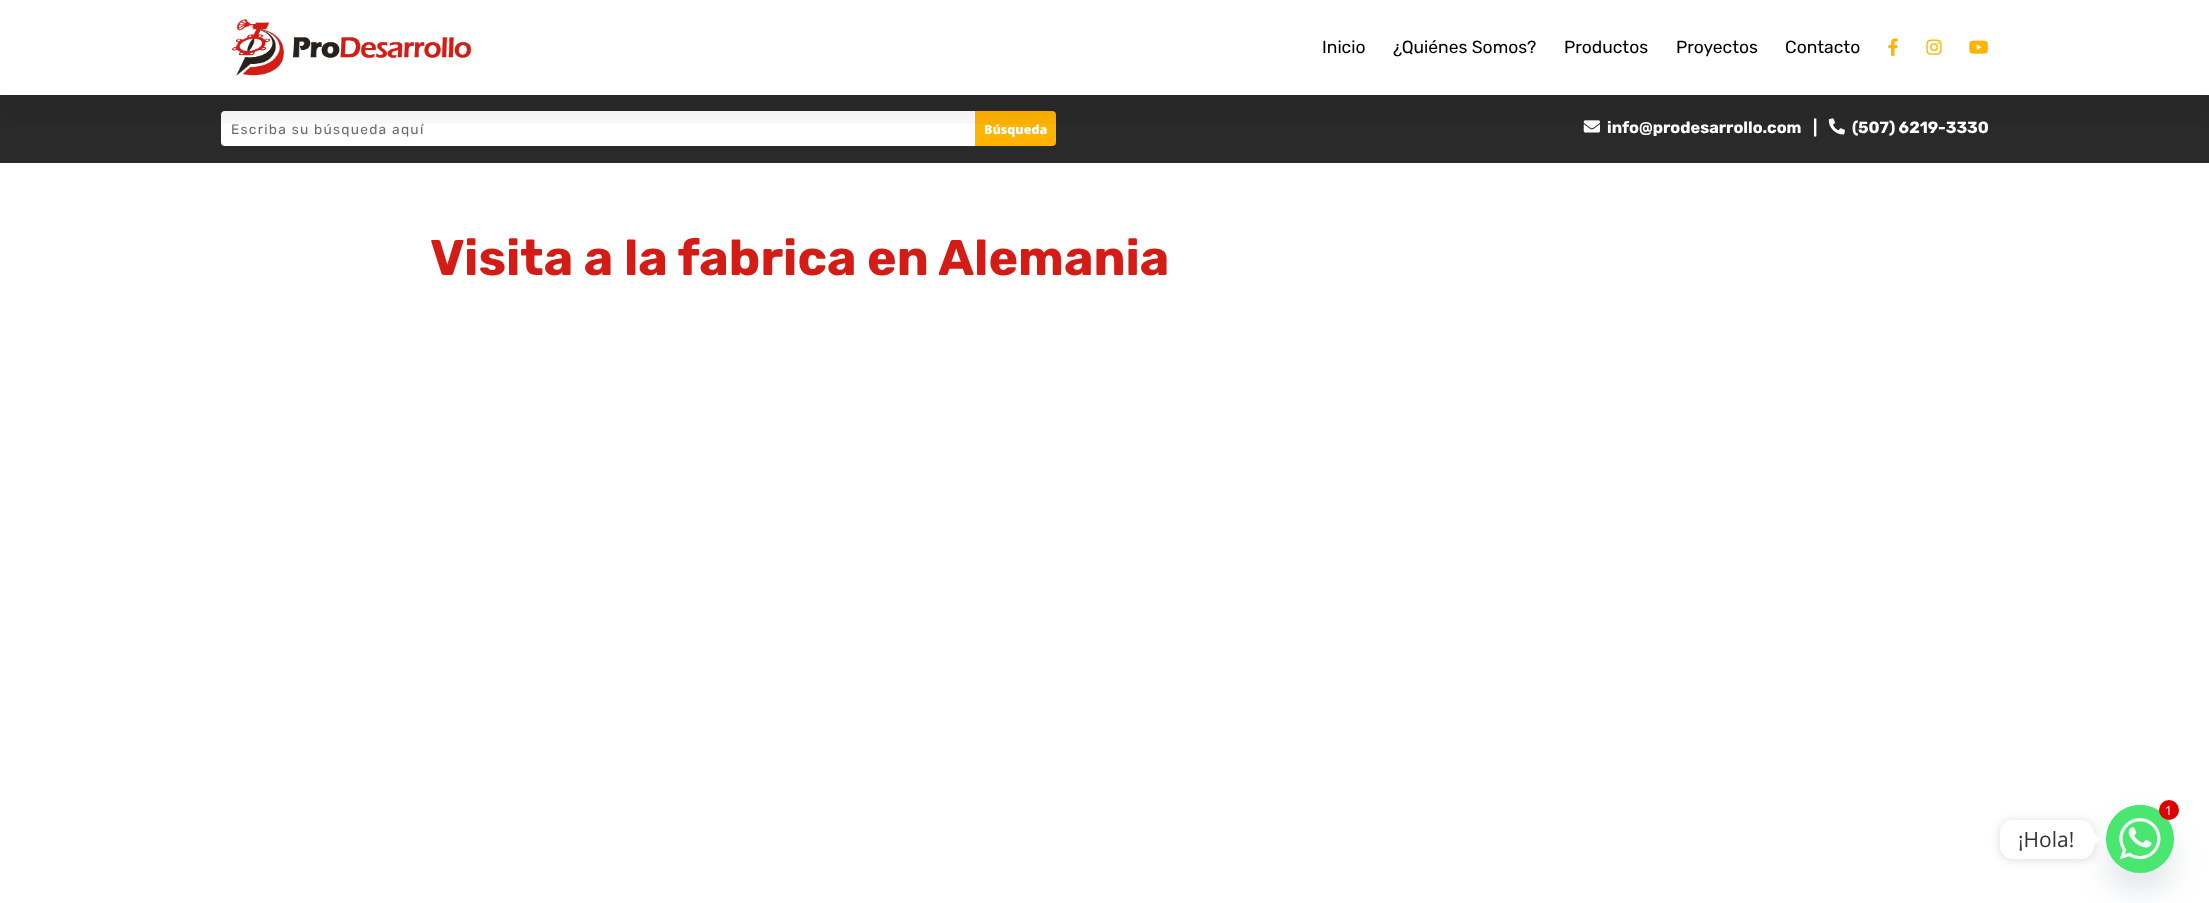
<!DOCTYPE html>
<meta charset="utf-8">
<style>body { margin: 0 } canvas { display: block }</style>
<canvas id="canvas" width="2209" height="903"></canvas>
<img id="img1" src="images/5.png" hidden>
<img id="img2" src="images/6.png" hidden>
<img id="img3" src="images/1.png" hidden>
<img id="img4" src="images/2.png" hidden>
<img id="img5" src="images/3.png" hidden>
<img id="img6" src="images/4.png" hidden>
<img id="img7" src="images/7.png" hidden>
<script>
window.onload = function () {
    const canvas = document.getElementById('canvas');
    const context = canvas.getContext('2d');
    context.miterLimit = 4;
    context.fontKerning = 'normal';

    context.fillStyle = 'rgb(255, 255, 255)';
    context.fillRect(0, 0, 2209, 903);
    context.fillStyle = 'rgb(42, 42, 42)';
    context.fillRect(0, 95, 2209, 68);
    context.fillStyle = 'rgb(255, 255, 255)';
    context.beginPath();
    context.roundRect(221, 111, 754, 35, [4, 0, 0, 4]);
    context.fill();
    context.fillStyle = 'rgb(255, 180, 0)';
    context.beginPath();
    context.roundRect(975, 111, 81, 35, [0, 4, 4, 0]);
    context.fill();
    context.drawImage(document.getElementById('img1'), 1583, 120, 17, 13);
    context.drawImage(document.getElementById('img2'), 1828, 118, 17, 17);
    context.save();
    context.beginPath();
    context.rect(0, 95, 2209, 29);
    context.clip();
    context.fillStyle = 'rgba(0, 0, 0, 0.07)';
    context.filter = 'blur(11px)';
    context.beginPath();
    context.rect(0, 23, 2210, 95);
    context.fill();
    context.filter = 'none';
    context.restore();
    context.drawImage(document.getElementById('img3'), 232, 19, 240, 57);
    context.drawImage(document.getElementById('img4'), 1888, 38, 10, 18);
    context.drawImage(document.getElementById('img5'), 1926, 39, 16, 16);
    context.drawImage(document.getElementById('img6'), 1969, 40, 19, 14);
    context.fillStyle = 'rgba(73, 104, 126, 0.16)';
    context.filter = 'blur(15px)';
    context.beginPath();
    context.roundRect(2106, 825, 68, 68, 34);
    context.fill();
    context.filter = 'none';
    context.fillStyle = 'rgb(73, 230, 112)';
    context.beginPath();
    context.arc(2140, 839, 34, 0, 2 * Math.PI);
    context.fill();
    context.drawImage(document.getElementById('img7'), 2106, 805, 68, 55);
    context.fillStyle = 'rgb(221, 0, 0)';
    context.beginPath();
    context.arc(2169, 810, 10, 0, 2 * Math.PI);
    context.fill();
    context.fillStyle = 'rgba(0, 0, 0, 0.15)';
    context.filter = 'blur(5px)';
    context.beginPath();
    context.roundRect(2000, 821, 94, 39, 13);
    context.fill();
    context.filter = 'none';
    context.fillStyle = 'rgb(255, 255, 255)';
    context.beginPath();
    context.roundRect(2000, 820, 94, 39, 13);
    context.fill();
    context.beginPath();
    context.moveTo(2094, 845.5);
    context.lineTo(2094, 833);
    context.lineTo(2100, 839.5);
    context.closePath();
    context.fill();
    context.font = '300 17.5px "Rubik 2"';
    context.fillStyle = 'rgb(0, 0, 0)';
    context.fillText('Inicio', 1322, 53);
    context.fillText('¿Quiénes Somos?', 1393, 53);
    context.fillText('Productos', 1564, 53);
    context.fillText('Proyectos', 1676, 53);
    context.fillText('Contacto', 1785, 53);
    context.letterSpacing = '1.25px';
    context.font = '300 13.75px "Rubik 2"';
    context.fillStyle = 'rgb(111, 107, 106)';
    context.fillText('Escriba su búsqueda aquí', 231, 134);
    context.letterSpacing = '0px';
    context.font = '800 12.5px Open Sans';
    context.fillStyle = 'rgb(255, 255, 255)';
    context.fillText('Búsqueda', 984, 134);
    context.font = '300 16.25px Rubik';
    context.fillText('info@prodesarrollo.com', 1607, 133);
    context.fillText('|', 1813, 133);
    context.fillText('(507) 6219-3330', 1852, 133);
    context.font = '300 50px Rubik';
    context.fillStyle = 'rgb(212, 28, 22)';
    context.fillText('Visita a la fabrica en Alemania', 430, 275);
    context.font = '12.5px Open Sans';
    context.fillStyle = 'rgb(255, 255, 255)';
    context.fillText('1', 2165, 815);
    context.font = '21px Open Sans';
    context.fillStyle = 'rgb(51, 51, 51)';
    context.fillText('¡Hola!', 2018, 847);
};
</script>
